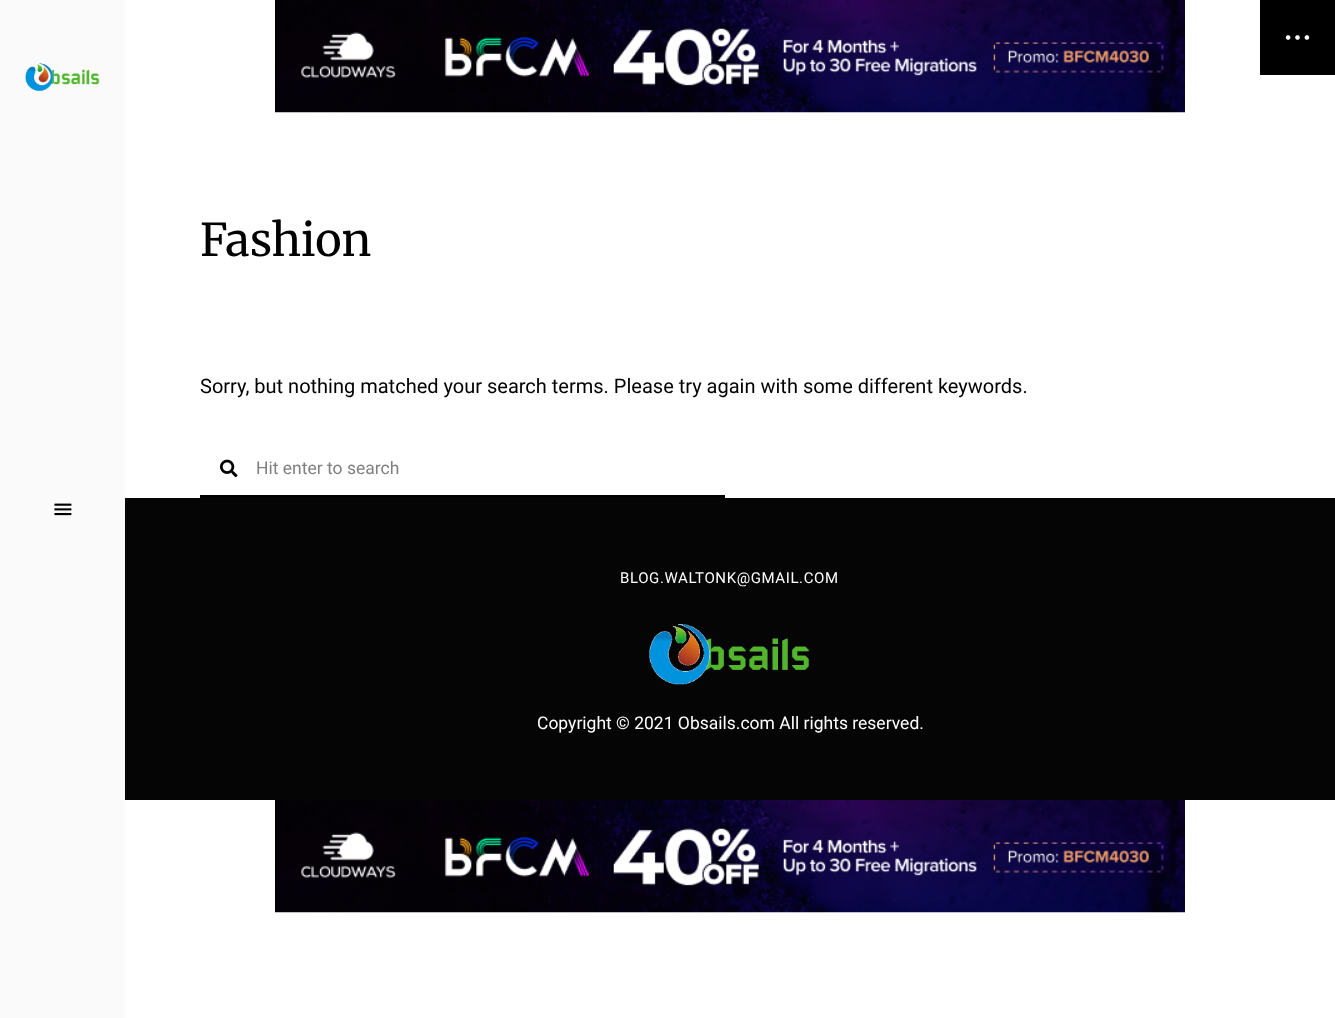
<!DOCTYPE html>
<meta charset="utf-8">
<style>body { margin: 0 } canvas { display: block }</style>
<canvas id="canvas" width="1335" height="1018"></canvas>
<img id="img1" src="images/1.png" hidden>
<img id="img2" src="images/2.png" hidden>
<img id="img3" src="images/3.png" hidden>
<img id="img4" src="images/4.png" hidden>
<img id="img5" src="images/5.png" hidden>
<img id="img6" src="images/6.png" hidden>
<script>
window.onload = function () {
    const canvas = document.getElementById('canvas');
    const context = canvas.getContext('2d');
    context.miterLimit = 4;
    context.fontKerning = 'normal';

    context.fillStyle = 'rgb(255, 255, 255)';
    context.fillRect(0, 0, 1335, 1018);
    context.fillStyle = 'rgb(250, 250, 250)';
    context.fillRect(0, 0, 125, 1018);
    context.drawImage(document.getElementById('img1'), 25, 63, 75, 29);
    context.drawImage(document.getElementById('img2'), 54, 503, 18, 13);
    context.drawImage(document.getElementById('img3'), 275, 0, 910, 113);
    context.fillStyle = 'rgb(0, 0, 0)';
    context.fillRect(1260, 0, 75, 75);
    context.drawImage(document.getElementById('img4'), 1285, 35, 25, 5);
    context.drawImage(document.getElementById('img5'), 220, 459, 18, 19);
    context.fillRect(200, 495, 525, 3);
    context.fillStyle = 'rgb(5, 5, 5)';
    context.fillRect(125, 498, 1210, 302);
    context.drawImage(document.getElementById('img6'), 649, 624, 161, 61);
    context.drawImage(document.getElementById('img3'), 275, 800, 910, 113);
    context.font = '45px Merriweather';
    context.fillStyle = 'rgb(0, 0, 0)';
    context.fillText('Fashion', 200, 256);
    context.font = '20px Roboto';
    context.fillText('Sorry, but nothing matched your search terms. Please try again with some different keywords.', 200, 393);
    context.font = '17.5px Roboto';
    context.fillStyle = 'rgb(128, 128, 128)';
    context.fillText('Hit enter to search', 256, 474);
    context.letterSpacing = '0.6px';
    context.font = '15px Roboto';
    context.fillStyle = 'rgb(255, 255, 255)';
    context.fillText('BLOG.WALTONK@GMAIL.COM', 620, 583);
    context.letterSpacing = '0px';
    context.font = '17.5px Roboto';
    context.fillText('Copyright © 2021 Obsails.com All rights reserved.', 537, 729);
};
</script>
